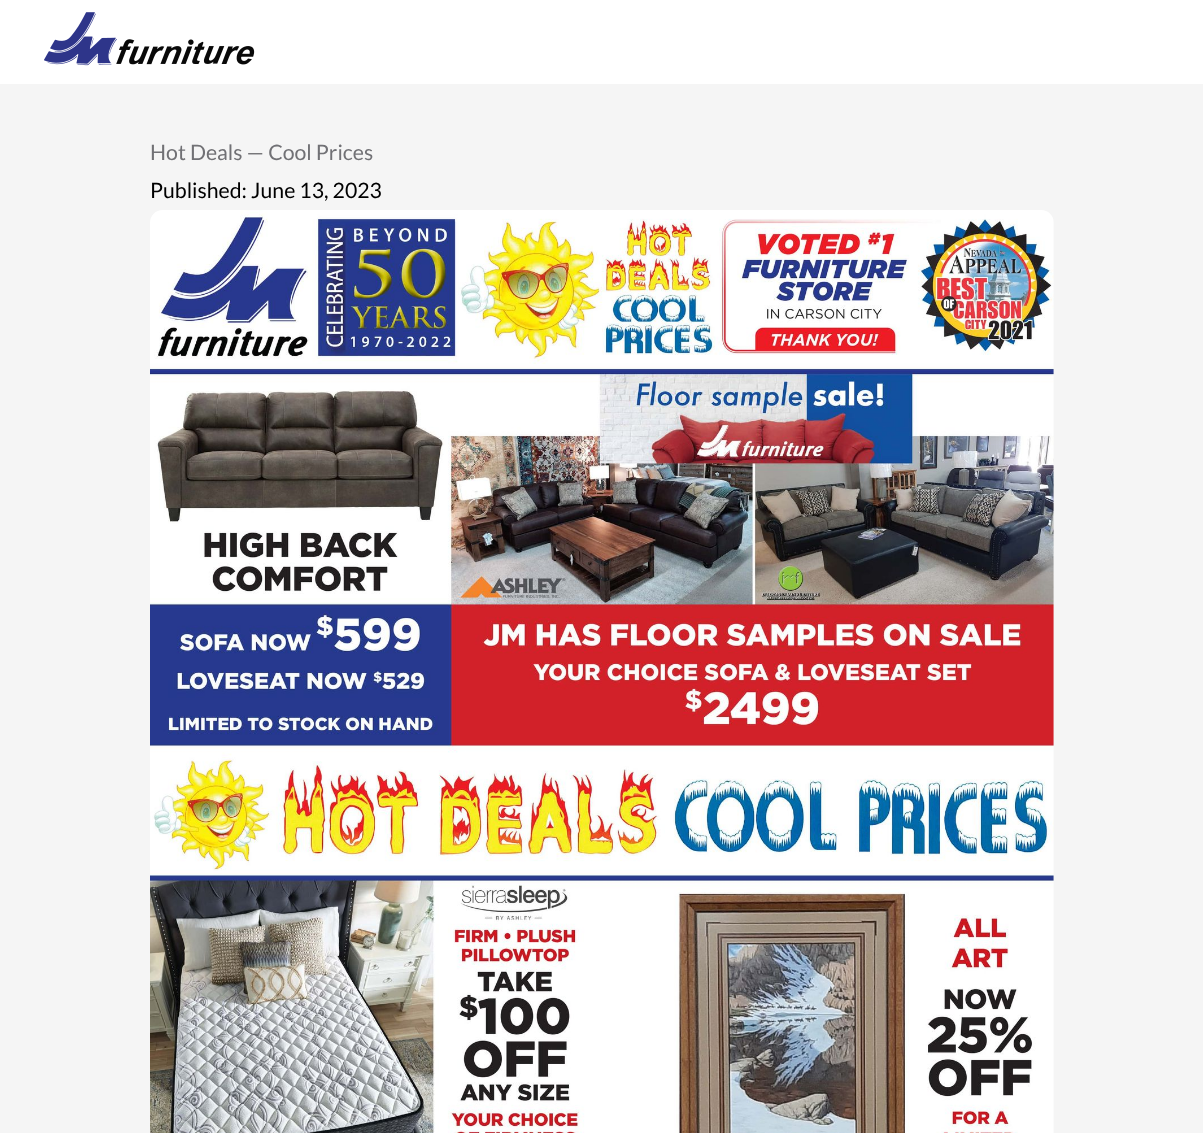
<!DOCTYPE html>
<meta charset="utf-8">
<style>body { margin: 0 } canvas { display: block }</style>
<canvas id="canvas" width="1203" height="1133"></canvas>
<img id="img1" src="images/1.png" hidden>
<img id="img2" src="images/2.png" hidden>
<script>
window.onload = function () {
    const canvas = document.getElementById('canvas');
    const context = canvas.getContext('2d');
    context.miterLimit = 4;
    context.fontKerning = 'normal';

    context.fillStyle = 'rgb(255, 255, 255)';
    context.fillRect(0, 0, 1203, 1133);
    context.drawImage(document.getElementById('img1'), 44, 12, 211, 54);
    context.fillStyle = 'rgb(245, 245, 245)';
    context.fillRect(0, 84, 1203, 1049);
    context.drawImage(document.getElementById('img2'), 150, 210, 904, 923);
    context.font = '21.25px Lato';
    context.fillStyle = 'rgb(113, 113, 117)';
    context.fillText('Hot Deals — Cool Prices', 150, 160);
    context.fillStyle = 'rgb(0, 0, 0)';
    context.fillText('Published: June 13, 2023', 150, 198);
};
</script>
